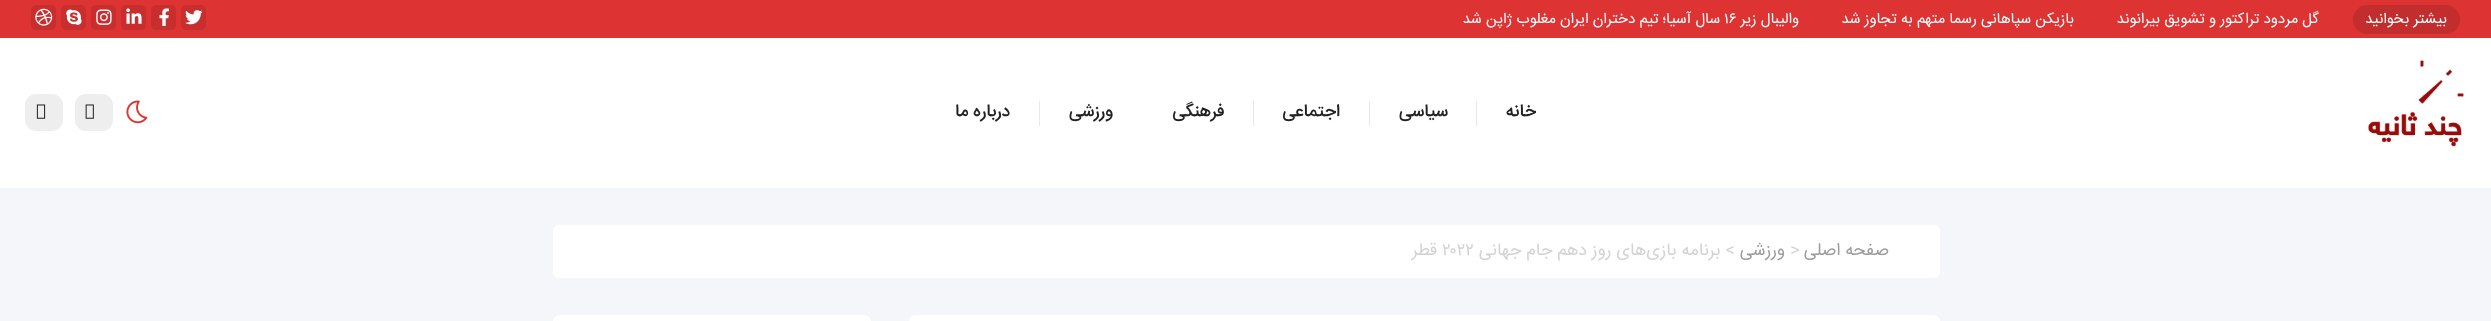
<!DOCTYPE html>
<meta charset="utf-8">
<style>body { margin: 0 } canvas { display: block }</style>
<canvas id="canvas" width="2491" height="321"></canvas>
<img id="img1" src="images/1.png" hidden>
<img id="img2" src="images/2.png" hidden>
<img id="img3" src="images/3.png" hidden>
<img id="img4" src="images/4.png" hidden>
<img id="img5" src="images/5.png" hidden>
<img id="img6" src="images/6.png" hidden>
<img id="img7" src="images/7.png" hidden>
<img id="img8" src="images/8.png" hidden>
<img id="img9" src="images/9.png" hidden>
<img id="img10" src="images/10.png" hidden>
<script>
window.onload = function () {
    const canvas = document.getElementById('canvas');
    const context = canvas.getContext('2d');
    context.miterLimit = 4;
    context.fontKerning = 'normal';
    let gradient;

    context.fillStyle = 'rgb(245, 246, 250)';
    context.fillRect(0, 0, 2491, 321);
    context.fillStyle = 'rgb(255, 255, 255)';
    context.fillRect(0, 38, 2491, 150);
    context.fillStyle = 'rgb(221, 51, 51)';
    context.fillRect(0, 0, 2491, 38);
    context.fillStyle = 'rgb(194, 45, 45)';
    context.beginPath();
    context.roundRect(2353, 5, 107, 29, 14.5);
    context.fill();
    context.fillStyle = 'rgb(201, 46, 46)';
    context.beginPath();
    context.roundRect(181, 5, 25, 25, 5);
    context.fill();
    context.drawImage(document.getElementById('img1'), 185, 10, 18, 15);
    context.beginPath();
    context.roundRect(151, 5, 25, 25, 5);
    context.fill();
    context.drawImage(document.getElementById('img2'), 159, 8, 10, 18);
    context.beginPath();
    context.roundRect(121, 5, 25, 25, 5);
    context.fill();
    context.drawImage(document.getElementById('img3'), 126, 8, 16, 16);
    context.beginPath();
    context.roundRect(91, 5, 25, 25, 5);
    context.fill();
    context.drawImage(document.getElementById('img4'), 96, 9, 16, 16);
    context.beginPath();
    context.roundRect(61, 5, 25, 25, 5);
    context.fill();
    context.drawImage(document.getElementById('img5'), 66, 9, 16, 16);
    context.beginPath();
    context.roundRect(31, 5, 25, 25, 5);
    context.fill();
    context.drawImage(document.getElementById('img6'), 35, 8, 18, 18);
    context.drawImage(document.getElementById('img7'), 2368, 60, 96, 87);
    context.fillStyle = 'rgb(232, 232, 232)';
    context.fillRect(1476, 101, 1, 25);
    context.fillRect(1369, 101, 1, 25);
    context.fillRect(1253, 101, 1, 25);
    context.fillRect(1039, 101, 1, 25);
    context.drawImage(document.getElementById('img8'), 126, 100, 22, 24);
    context.fillStyle = 'rgb(238, 238, 238)';
    context.beginPath();
    context.roundRect(75, 94, 38, 37, 11);
    context.fill();
    context.drawImage(document.getElementById('img9'), 85, 104, 9, 15);
    context.beginPath();
    context.roundRect(25, 94, 38, 37, 11);
    context.fill();
    context.drawImage(document.getElementById('img10'), 36, 104, 10, 15);
    context.fillStyle = 'rgb(255, 255, 255)';
    context.beginPath();
    context.roundRect(553, 225, 1387, 53, 6);
    context.fill();
    context.beginPath();
    context.roundRect(909, 315, 1031, 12, 6);
    context.fill();
    context.beginPath();
    context.roundRect(553, 315, 318, 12, 6);
    context.fill();
    context.direction = 'rtl';
    context.font = '15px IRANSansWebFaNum';
    context.fillText('بیشتر بخوانید', 2447, 23);
    context.fillText('گل مردود تراکتور و تشویق بیرانوند', 2319, 23);
    gradient = context.createLinearGradient(2303, 19, 2345, 19);
    gradient.addColorStop(0.3, 'rgba(221, 51, 51, 0)');
    gradient.addColorStop(1, 'rgb(221, 51, 51)');
    context.fillStyle = gradient;
    context.fillRect(2316, 11, 3, 11);
    context.fillStyle = 'rgb(255, 255, 255)';
    context.fillText('بازیکن سپاهانی رسما متهم به تجاوز شد', 2074, 23);
    context.fillText('والیبال زیر', 1799, 23);
    context.direction = 'ltr';
    context.fillText('۱۶', 1724, 23);
    context.direction = 'rtl';
    context.fillText('سال آسیا؛ تیم دختران ایران مغلوب ژاپن شد', 1720, 23);
    context.font = '500 17.5px IRANSansWebFaNum';
    context.fillStyle = 'rgb(34, 34, 34)';
    context.fillText('خانه', 1536, 116);
    context.fillText('سیاسی', 1448, 116);
    context.fillText('اجتماعی', 1340, 116);
    context.fillText('فرهنگی', 1224, 116);
    context.fillText('ورزشی', 1113, 116);
    context.fillText('درباره ما', 1010, 116);
    context.font = '17.5px IRANSansWebFaNum';
    context.fillStyle = 'rgb(157, 157, 157)';
    context.fillText('صفحه اصلی', 1889, 255);
    context.direction = 'ltr';
    context.fillStyle = 'rgb(211, 211, 211)';
    context.fillText('>', 1790, 255);
    context.direction = 'rtl';
    context.fillStyle = 'rgb(157, 157, 157)';
    context.fillText('ورزشی', 1785, 255);
    context.fillStyle = 'rgb(211, 211, 211)';
    context.fillText('> برنامه بازی‌های روز دهم جام جهانی', 1735, 255);
    context.direction = 'ltr';
    context.fillText('۲۰۲۲', 1442, 255);
    context.direction = 'rtl';
    context.fillText('قطر', 1437, 255);
};
</script>
